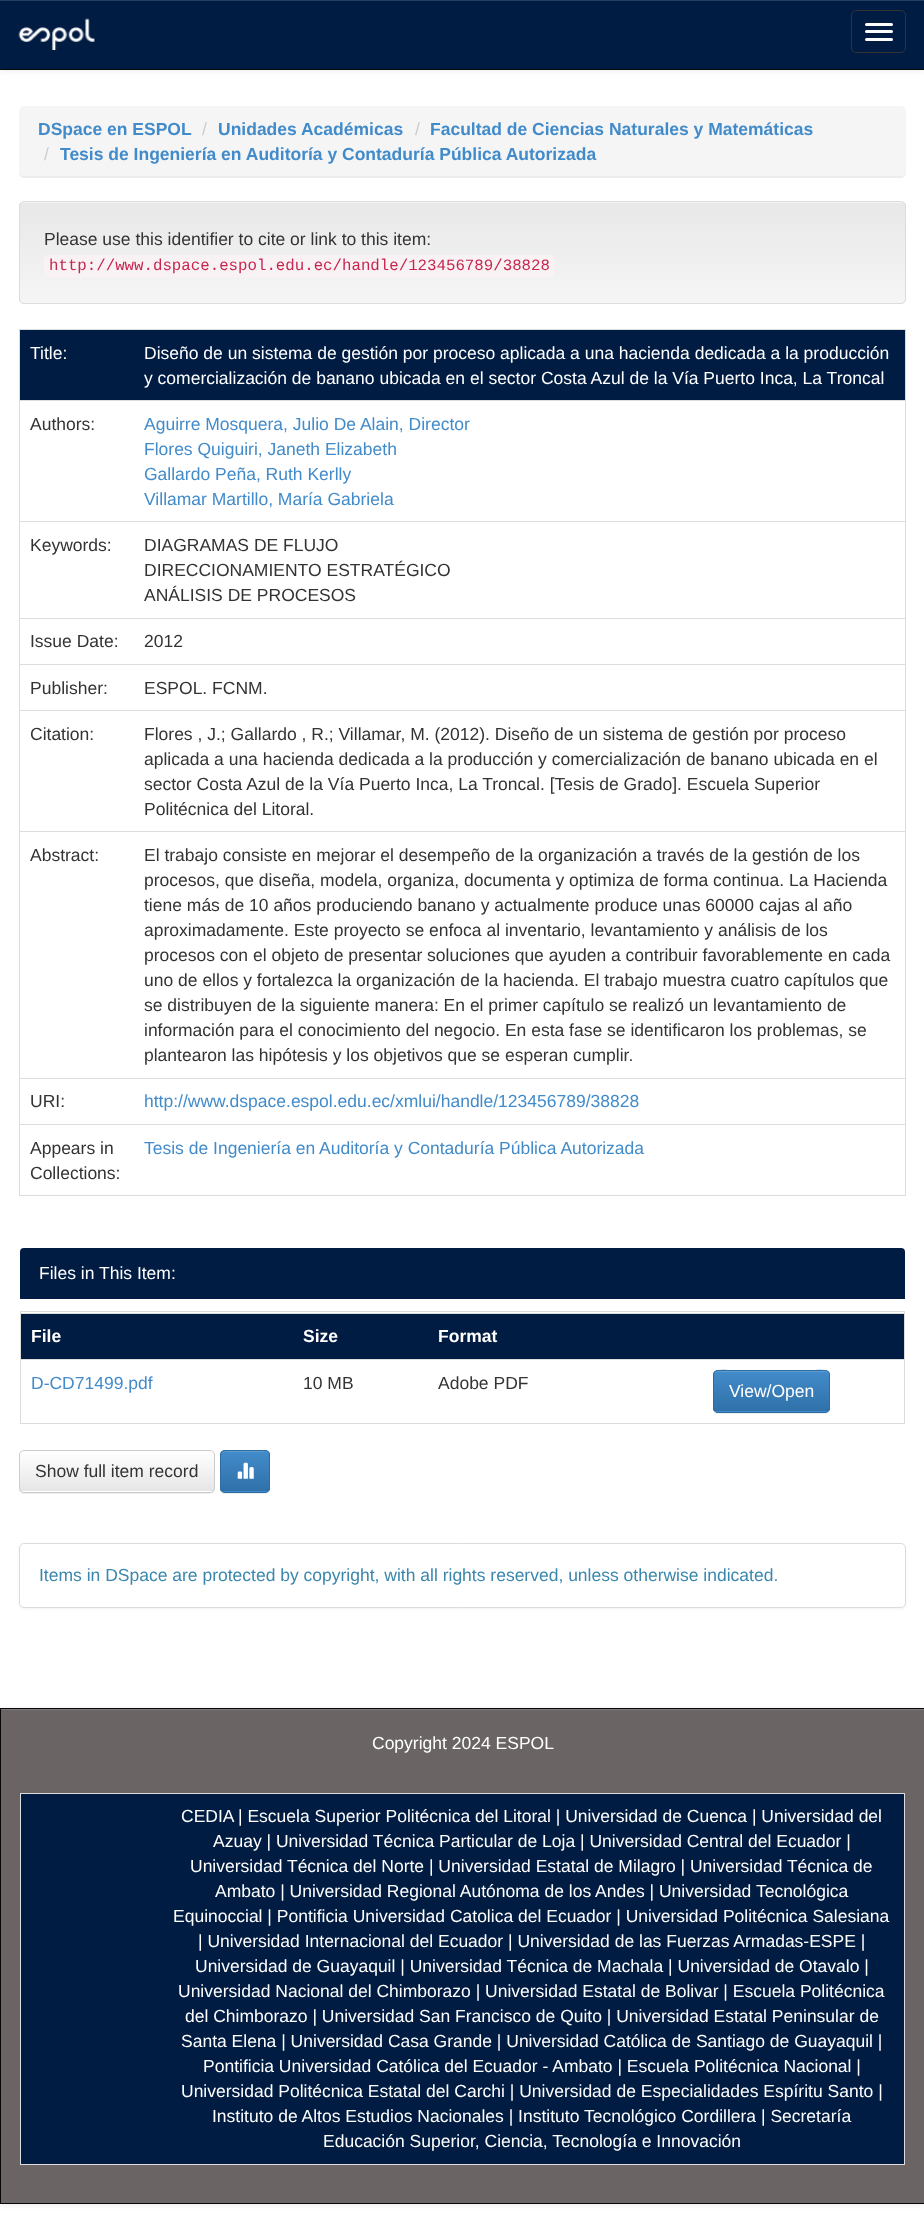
<!DOCTYPE html>
<meta charset="utf-8">
<style>body { margin: 0 } canvas { display: block }</style>
<canvas id="canvas" width="924" height="2233"></canvas>
<img id="img1" src="images/1.png" hidden>
<img id="img2" src="images/2.png" hidden>
<script>
window.onload = function () {
    const canvas = document.getElementById('canvas');
    const context = canvas.getContext('2d');
    context.miterLimit = 4;
    context.fontKerning = 'normal';
    let gradient;

    context.fillStyle = 'rgb(255, 255, 255)';
    context.fillRect(0, 0, 924, 2233);
    context.fillStyle = 'rgba(0, 0, 0, 0.07)';
    context.filter = 'blur(3px)';
    context.beginPath();
    context.rect(0, 1, 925, 70);
    context.fill();
    context.filter = 'none';
    context.fillStyle = 'rgb(0, 28, 67)';
    context.fillRect(0, 1, 924, 68);
    context.fillStyle = 'rgb(38, 62, 95)';
    context.fillRect(0, 0, 924, 1);
    context.fillStyle = 'rgb(8, 8, 8)';
    context.fillRect(0, 69, 924, 1);
    context.drawImage(document.getElementById('img1'), 18, 18, 77, 32);
    context.beginPath();
    context.roundRect(851.5, 10.5, 54, 42, 4.5);
    context.strokeStyle = 'rgb(51, 51, 51)';
    context.stroke();
    context.fillStyle = 'rgb(255, 255, 255)';
    context.beginPath();
    context.roundRect(865, 23, 28, 3, 1.5);
    context.fill();
    context.beginPath();
    context.roundRect(865, 30, 28, 3, 1.5);
    context.fill();
    context.beginPath();
    context.roundRect(865, 38, 28, 3, 1.5);
    context.fill();
    context.fillStyle = 'rgba(0, 0, 0, 0.07)';
    context.filter = 'blur(0.5px)';
    context.beginPath();
    context.roundRect(19, 108, 887, 70, 5);
    context.fill();
    context.filter = 'none';
    context.fillStyle = 'rgb(245, 245, 245)';
    context.beginPath();
    context.roundRect(19, 106, 887, 70, 5);
    context.fill();
    context.beginPath();
    context.roundRect(19, 201, 887, 103, 5);
    context.fill();
    context.save();
    context.beginPath();
    context.roundRect(19, 201, 887, 103, 5);
    context.clip();
    gradient = context.createLinearGradient(463, 202, 463, 303);
    gradient.addColorStop(0, 'rgb(232, 232, 232)');
    gradient.addColorStop(1, 'rgb(245, 245, 245)');
    context.fillStyle = gradient;
    context.fillRect(19, 203, 887, 100);
    context.restore();
    context.beginPath();
    context.roundRect(19.5, 201.5, 886, 102, 4.5);
    context.strokeStyle = 'rgb(220, 220, 220)';
    context.stroke();
    context.fillStyle = 'rgb(249, 242, 244)';
    context.beginPath();
    context.roundRect(44, 255, 511, 23, 5);
    context.fill();
    context.fillStyle = 'rgb(220, 220, 220)';
    context.fillRect(19, 329, 887, 1);
    context.fillRect(905, 329, 1, 867);
    context.fillRect(19, 1195, 887, 1);
    context.fillRect(19, 329, 1, 867);
    context.fillStyle = 'rgb(0, 28, 67)';
    context.fillRect(20, 330, 885, 70);
    context.fillStyle = 'rgb(221, 221, 221)';
    context.fillRect(19, 400, 887, 1);
    context.fillRect(19, 521, 887, 1);
    context.fillRect(19, 618, 887, 1);
    context.fillRect(19, 664, 887, 1);
    context.fillRect(19, 710, 887, 1);
    context.fillRect(19, 831, 887, 1);
    context.fillRect(19, 1078, 887, 1);
    context.fillRect(19, 1124, 887, 1);
    context.fillStyle = 'rgb(0, 28, 67)';
    context.beginPath();
    context.roundRect(20, 1248, 885, 51, [4, 4, 0, 0]);
    context.fill();
    context.fillStyle = 'rgb(220, 220, 220)';
    context.fillRect(20, 1311, 885, 1);
    context.fillRect(904, 1311, 1, 113);
    context.fillRect(20, 1423, 885, 1);
    context.fillRect(20, 1311, 1, 113);
    context.fillStyle = 'rgb(0, 28, 67)';
    context.fillRect(21, 1314, 883, 45);
    context.fillStyle = 'rgb(221, 221, 221)';
    context.fillRect(20, 1313, 885, 1);
    context.fillRect(20, 1359, 885, 1);
    context.fillStyle = 'rgba(0, 0, 0, 0.07)';
    context.filter = 'blur(0.5px)';
    context.beginPath();
    context.roundRect(713, 1371, 117, 43, 5);
    context.fill();
    context.filter = 'none';
    context.fillStyle = 'rgb(66, 139, 202)';
    context.beginPath();
    context.roundRect(713, 1370, 117, 43, 5);
    context.fill();
    context.save();
    context.beginPath();
    context.roundRect(713, 1370, 117, 43, 5);
    context.clip();
    gradient = context.createLinearGradient(771, 1371, 771, 1411);
    gradient.addColorStop(0, 'rgb(66, 139, 202)');
    gradient.addColorStop(1, 'rgb(48, 113, 169)');
    context.fillStyle = gradient;
    context.fillRect(713, 1371, 117, 40);
    context.restore();
    context.fillStyle = 'rgb(94, 156, 210)';
    context.beginPath();
    context.moveTo(718, 1372);
    context.lineTo(825, 1372);
    context.bezierCurveTo(827, 1372, 829, 1374, 829, 1376);
    context.bezierCurveTo(829, 1366, 811, 1371, 807, 1371);
    context.lineTo(736, 1371);
    context.bezierCurveTo(732, 1371, 714, 1366, 714, 1376);
    context.bezierCurveTo(714, 1374, 715, 1372, 718, 1372);
    context.closePath();
    context.fill();
    context.beginPath();
    context.roundRect(713.5, 1370.5, 116, 42, 4.5);
    context.strokeStyle = 'rgb(45, 108, 162)';
    context.stroke();
    context.fillStyle = 'rgba(0, 0, 0, 0.07)';
    context.filter = 'blur(0.5px)';
    context.beginPath();
    context.roundRect(19, 1451, 196, 43, 5);
    context.fill();
    context.filter = 'none';
    context.fillStyle = 'rgb(255, 255, 255)';
    context.beginPath();
    context.roundRect(19, 1450, 196, 43, 5);
    context.fill();
    context.save();
    context.beginPath();
    context.roundRect(19, 1450, 196, 43, 5);
    context.clip();
    gradient = context.createLinearGradient(117, 1451, 117, 1491);
    gradient.addColorStop(0, 'rgb(255, 255, 255)');
    gradient.addColorStop(1, 'rgb(230, 230, 230)');
    context.fillStyle = gradient;
    context.fillRect(19, 1451, 196, 40);
    context.restore();
    context.beginPath();
    context.roundRect(19.5, 1450.5, 195, 42, 4.5);
    context.strokeStyle = 'rgb(204, 204, 204)';
    context.stroke();
    context.fillStyle = 'rgba(0, 0, 0, 0.07)';
    context.filter = 'blur(0.5px)';
    context.beginPath();
    context.roundRect(220, 1451, 50, 43, 5);
    context.fill();
    context.filter = 'none';
    context.fillStyle = 'rgb(66, 139, 202)';
    context.beginPath();
    context.roundRect(220, 1450, 50, 43, 5);
    context.fill();
    context.save();
    context.beginPath();
    context.roundRect(220, 1450, 50, 43, 5);
    context.clip();
    gradient = context.createLinearGradient(245, 1451, 245, 1491);
    gradient.addColorStop(0, 'rgb(66, 139, 202)');
    gradient.addColorStop(1, 'rgb(48, 113, 169)');
    context.fillStyle = gradient;
    context.fillRect(220, 1451, 50, 40);
    context.restore();
    context.fillStyle = 'rgb(94, 156, 210)';
    context.beginPath();
    context.moveTo(225, 1452);
    context.lineTo(265, 1452);
    context.bezierCurveTo(267, 1452, 269, 1454, 269, 1456);
    context.bezierCurveTo(269, 1450, 263, 1451, 258, 1451);
    context.lineTo(232, 1451);
    context.bezierCurveTo(227, 1451, 221, 1450, 221, 1456);
    context.bezierCurveTo(221, 1454, 223, 1452, 225, 1452);
    context.closePath();
    context.fill();
    context.beginPath();
    context.roundRect(220.5, 1450.5, 49, 42, 4.5);
    context.strokeStyle = 'rgb(45, 108, 162)';
    context.stroke();
    context.drawImage(document.getElementById('img2'), 237, 1462, 17, 17);
    context.fillStyle = 'rgba(0, 0, 0, 0.05)';
    context.filter = 'blur(1px)';
    context.beginPath();
    context.roundRect(19, 1544, 887, 65, 5);
    context.fill();
    context.filter = 'none';
    context.fillStyle = 'rgb(255, 255, 255)';
    context.beginPath();
    context.roundRect(19.5, 1543.5, 886, 64, 4.5);
    context.fill();
    context.strokeStyle = 'rgb(220, 220, 220)';
    context.stroke();
    context.fillStyle = 'rgba(0, 0, 0, 0.07)';
    context.filter = 'blur(3px)';
    context.beginPath();
    context.rect(0, 1709, 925, 496);
    context.fill();
    context.filter = 'none';
    context.fillStyle = 'rgb(106, 100, 100)';
    context.fillRect(1, 1710, 923, 493);
    context.fillStyle = 'rgb(128, 123, 123)';
    context.fillRect(1, 1709, 923, 1);
    context.strokeStyle = 'rgb(8, 8, 8)';
    context.strokeRect(0.5, 1708.5, 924, 495);
    context.fillStyle = 'rgb(0, 28, 67)';
    context.fillRect(21, 1794, 883, 370);
    context.fillStyle = 'rgb(221, 221, 221)';
    context.fillRect(20, 1793, 885, 1);
    context.fillRect(904, 1793, 1, 372);
    context.fillRect(20, 2164, 885, 1);
    context.fillRect(20, 1793, 1, 372);
    context.font = 'bold 17.5px Liberation Sans';
    context.fillStyle = 'rgb(66, 139, 202)';
    context.fillText('DSpace en ESPOL', 38, 135);
    context.font = '17.5px Liberation Sans';
    context.fillStyle = 'rgb(204, 204, 204)';
    context.fillText('/', 202, 135);
    context.font = 'bold 17.5px Liberation Sans';
    context.fillStyle = 'rgb(66, 139, 202)';
    context.fillText('Unidades Académicas', 218, 135);
    context.font = '17.5px Liberation Sans';
    context.fillStyle = 'rgb(204, 204, 204)';
    context.fillText('/', 415, 135);
    context.font = 'bold 17.5px Liberation Sans';
    context.fillStyle = 'rgb(66, 139, 202)';
    context.fillText('Facultad de Ciencias Naturales y Matemáticas', 430, 135);
    context.font = '17.5px Liberation Sans';
    context.fillStyle = 'rgb(204, 204, 204)';
    context.fillText('/', 44, 160);
    context.font = 'bold 17.5px Liberation Sans';
    context.fillStyle = 'rgb(66, 139, 202)';
    context.fillText('Tesis de Ingeniería en Auditoría y Contaduría Pública Autorizada', 60, 160);
    context.font = '17.5px Liberation Sans';
    context.fillStyle = 'rgb(51, 51, 51)';
    context.fillText('Please use this identifier to cite or link to this item:', 44, 245);
    context.font = '15.75px Liberation Mono';
    context.fillStyle = 'rgb(199, 37, 78)';
    context.fillText('http://www.dspace.espol.edu.ec/handle/123456789/38828', 49, 270);
    context.font = '17.5px Liberation Sans';
    context.fillStyle = 'rgb(255, 255, 255)';
    context.fillText('Title:', 30, 359);
    context.fillText('Diseño de un sistema de gestión por proceso aplicada a una hacienda dedicada a la producción', 144, 359);
    context.fillText('y comercialización de banano ubicada en el sector Costa Azul de la Vía Puerto Inca, La Troncal', 144, 384);
    context.fillStyle = 'rgb(51, 51, 51)';
    context.fillText('Authors:', 30, 430);
    context.fillStyle = 'rgb(66, 139, 202)';
    context.fillText('Aguirre Mosquera, Julio De Alain, Director', 144, 430);
    context.fillText('Flores Quiguiri, Janeth Elizabeth', 144, 455);
    context.fillText('Gallardo Peña, Ruth Kerlly', 144, 480);
    context.fillText('Villamar Martillo, María Gabriela', 144, 505);
    context.fillStyle = 'rgb(51, 51, 51)';
    context.fillText('Keywords:', 30, 551);
    context.fillText('DIAGRAMAS DE FLUJO', 144, 551);
    context.fillText('DIRECCIONAMIENTO ESTRATÉGICO', 144, 576);
    context.fillText('ANÁLISIS DE PROCESOS', 144, 601);
    context.fillText('Issue Date:', 30, 647);
    context.fillText('2012', 144, 647);
    context.fillText('Publisher:', 30, 694);
    context.fillText('ESPOL. FCNM.', 144, 694);
    context.fillText('Citation:', 30, 740);
    context.fillText('Flores , J.; Gallardo , R.; Villamar, M. (2012). Diseño de un sistema de gestión por proceso', 144, 740);
    context.fillText('aplicada a una hacienda dedicada a la producción y comercialización de banano ubicada en el', 144, 765);
    context.fillText('sector Costa Azul de la Vía Puerto Inca, La Troncal. [Tesis de Grado]. Escuela Superior', 144, 790);
    context.fillText('Politécnica del Litoral.', 144, 815);
    context.fillText('Abstract:', 30, 861);
    context.fillText('El trabajo consiste en mejorar el desempeño de la organización a través de la gestión de los', 144, 861);
    context.fillText('procesos, que diseña, modela, organiza, documenta y optimiza de forma continua. La Hacienda', 144, 886);
    context.fillText('tiene más de 10 años produciendo banano y actualmente produce unas 60000 cajas al año', 144, 911);
    context.fillText('aproximadamente. Este proyecto se enfoca al inventario, levantamiento y análisis de los', 144, 936);
    context.fillText('procesos con el objeto de presentar soluciones que ayuden a contribuir favorablemente en cada', 144, 961);
    context.fillText('uno de ellos y fortalezca la organización de la hacienda. El trabajo muestra cuatro capítulos que', 144, 986);
    context.fillText('se distribuyen de la siguiente manera: En el primer capítulo se realizó un levantamiento de', 144, 1011);
    context.fillText('información para el conocimiento del negocio. En esta fase se identificaron los problemas, se', 144, 1036);
    context.fillText('plantearon las hipótesis y los objetivos que se esperan cumplir.', 144, 1061);
    context.fillText('URI:', 30, 1107);
    context.fillStyle = 'rgb(66, 139, 202)';
    context.fillText('http://www.dspace.espol.edu.ec/xmlui/handle/123456789/38828', 144, 1107);
    context.fillStyle = 'rgb(51, 51, 51)';
    context.fillText('Appears in', 30, 1154);
    context.fillText('Collections:', 30, 1179);
    context.fillStyle = 'rgb(66, 139, 202)';
    context.fillText('Tesis de Ingeniería en Auditoría y Contaduría Pública Autorizada', 144, 1154);
    context.fillStyle = 'rgb(255, 255, 255)';
    context.fillText('Files in This Item:', 39, 1279);
    context.font = 'bold 17.5px Liberation Sans';
    context.fillText('File', 31, 1342);
    context.fillText('Size', 303, 1342);
    context.fillText('Format', 438, 1342);
    context.font = '17.5px Liberation Sans';
    context.fillStyle = 'rgb(66, 139, 202)';
    context.fillText('D-CD71499.pdf', 31, 1389);
    context.fillStyle = 'rgb(51, 51, 51)';
    context.fillText('10 MB', 303, 1389);
    context.fillText('Adobe PDF', 438, 1389);
    context.fillStyle = 'rgb(255, 255, 255)';
    context.fillText('View/Open', 729, 1397);
    context.fillStyle = 'rgb(51, 51, 51)';
    context.fillText('Show full item record', 35, 1477);
    context.fillStyle = 'rgb(58, 135, 173)';
    context.fillText('Items in DSpace are protected by copyright, with all rights reserved, unless otherwise indicated.', 39, 1581);
    context.fillStyle = 'rgb(255, 255, 255)';
    context.fillText('Copyright 2024 ESPOL', 372, 1749);
    context.fillText('CEDIA', 181, 1822);
    context.fillText('| Escuela Superior Politécnica del Litoral | Universidad de Cuenca | Universidad del', 238, 1822);
    context.fillText('Azuay | Universidad Técnica Particular de Loja | Universidad Central del Ecuador |', 213, 1847);
    context.fillText('Universidad Técnica del Norte | Universidad Estatal de Milagro | Universidad Técnica de', 190, 1872);
    context.fillText('Ambato | Universidad Regional Autónoma de los Andes | Universidad Tecnológica', 215, 1897);
    context.fillText('Equinoccial | Pontificia Universidad Catolica del Ecuador | Universidad Politécnica Salesiana', 173, 1922);
    context.fillText('| Universidad Internacional del Ecuador | Universidad de las Fuerzas Armadas-ESPE |', 198, 1947);
    context.fillText('Universidad de Guayaquil | Universidad Técnica de Machala | Universidad de Otavalo |', 195, 1972);
    context.fillText('Universidad Nacional del Chimborazo | Universidad Estatal de Bolivar | Escuela Politécnica', 178, 1997);
    context.fillText('del Chimborazo | Universidad San Francisco de Quito | Universidad Estatal Peninsular de', 185, 2022);
    context.fillText('Santa Elena | Universidad Casa Grande | Universidad Católica de Santiago de Guayaquil |', 181, 2047);
    context.fillText('Pontificia Universidad Católica del Ecuador - Ambato | Escuela Politécnica Nacional |', 203, 2072);
    context.fillText('Universidad Politécnica Estatal del Carchi | Universidad de Especialidades Espíritu Santo |', 181, 2097);
    context.fillText('Instituto de Altos Estudios Nacionales | Instituto Tecnológico Cordillera | Secretaría', 212, 2122);
    context.fillText('Educación Superior, Ciencia, Tecnología e Innovación', 323, 2147);
};
</script>
